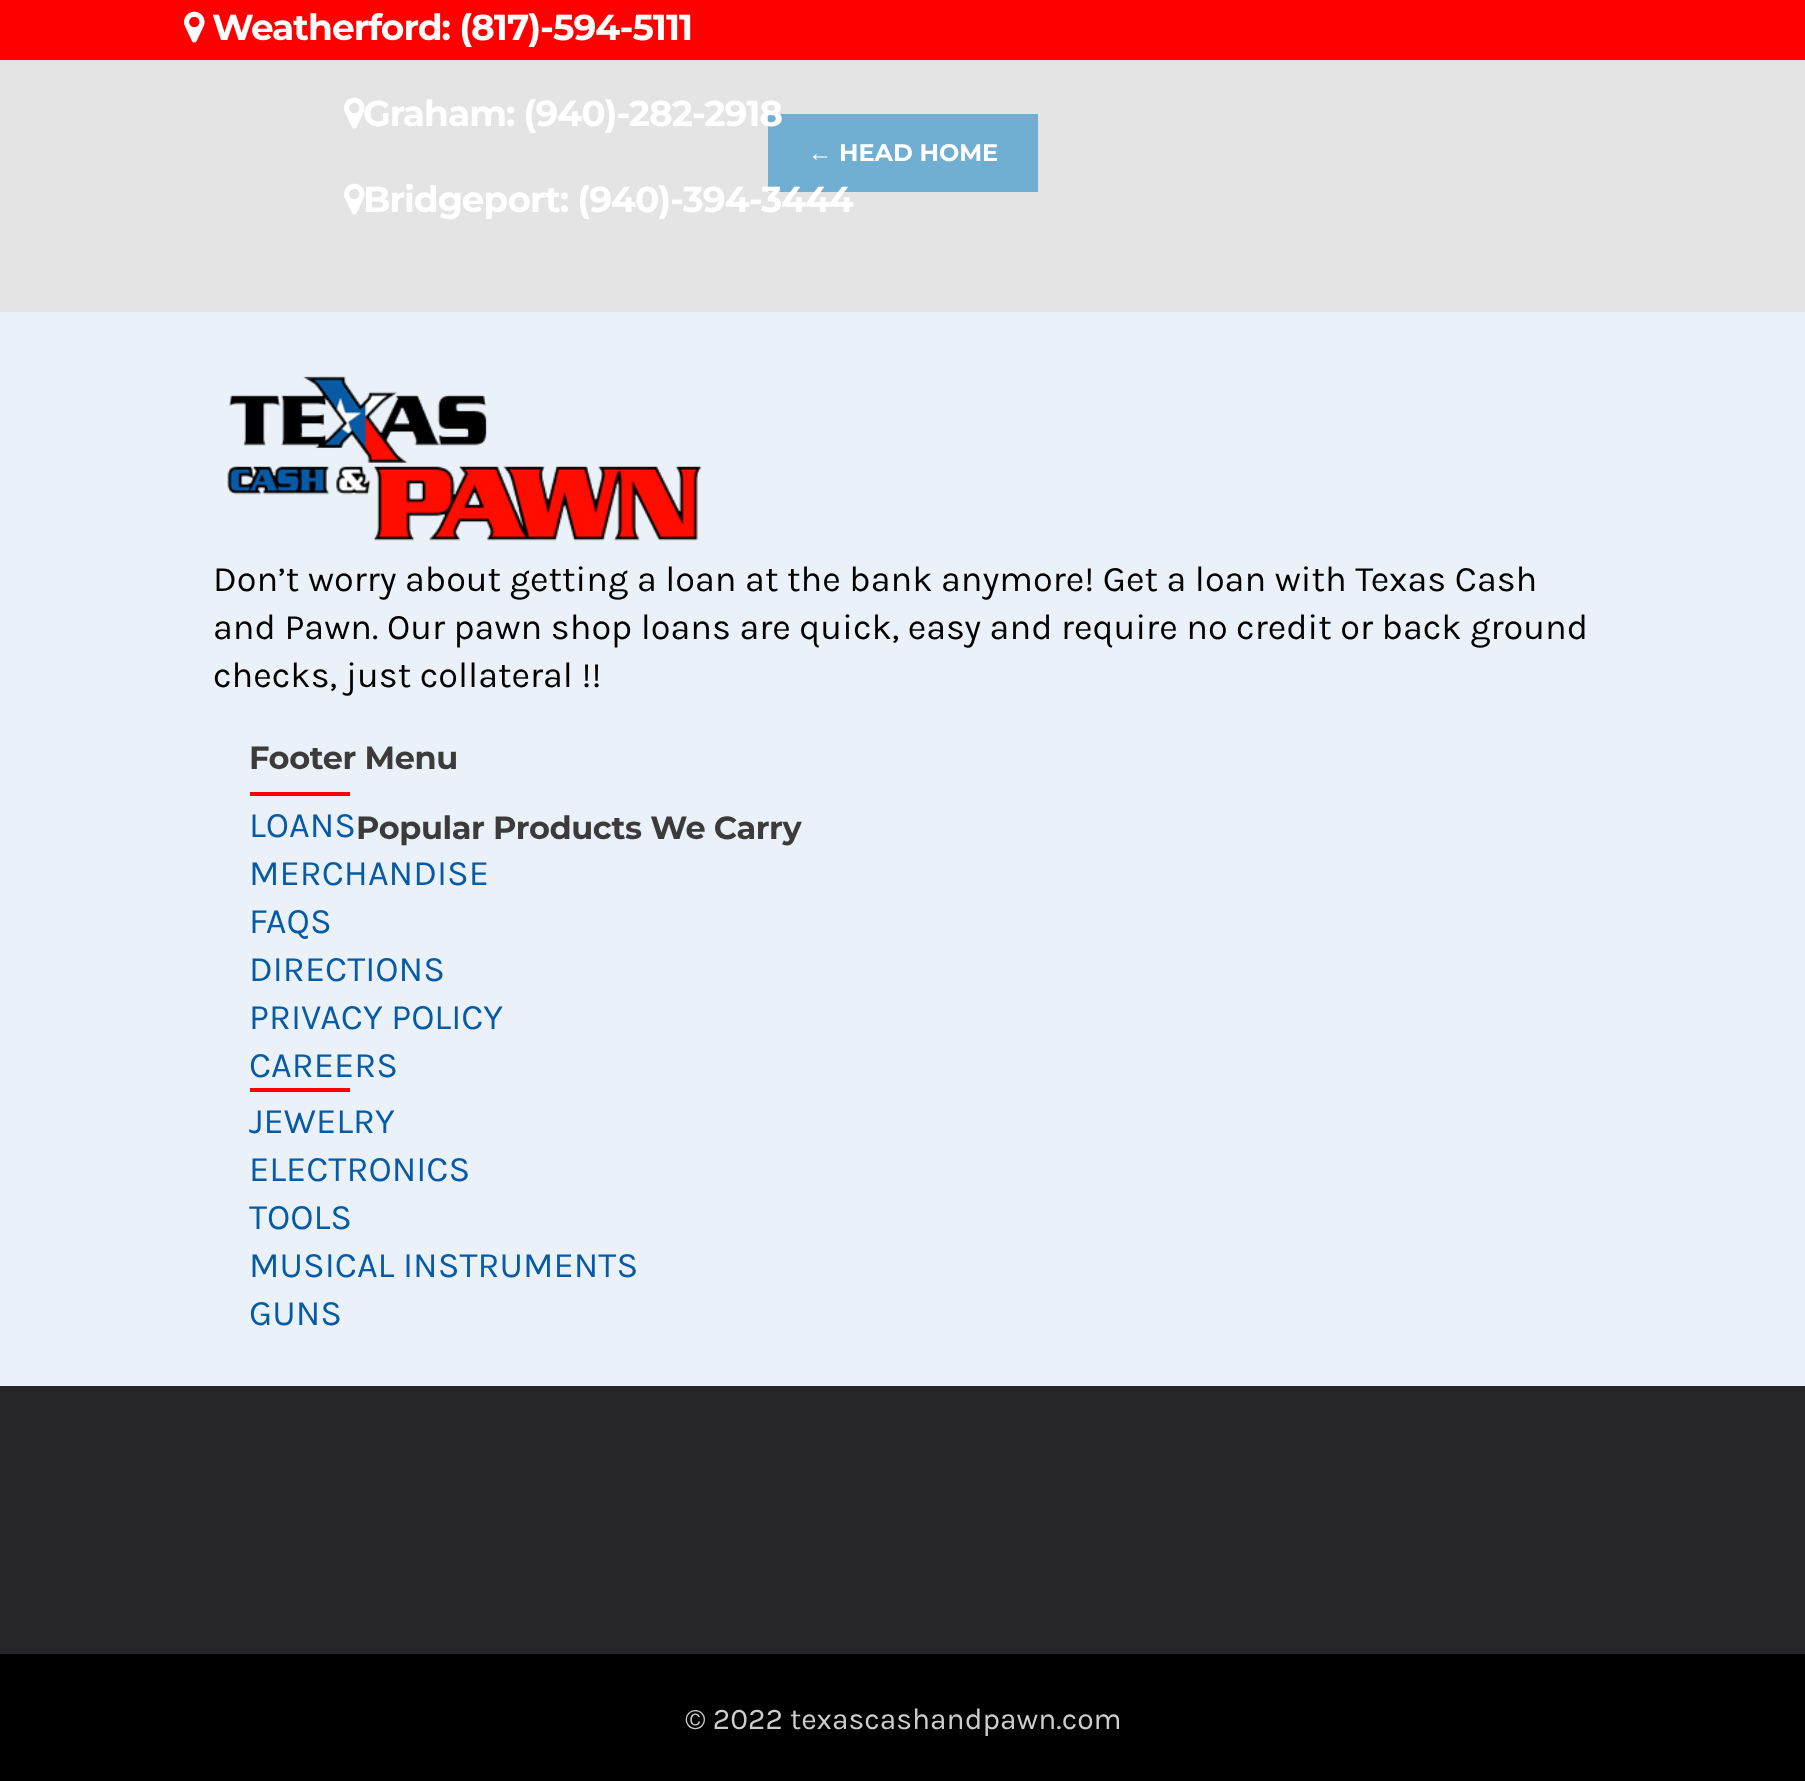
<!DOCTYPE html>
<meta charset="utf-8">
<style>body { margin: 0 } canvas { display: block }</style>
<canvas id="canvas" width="1805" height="1781"></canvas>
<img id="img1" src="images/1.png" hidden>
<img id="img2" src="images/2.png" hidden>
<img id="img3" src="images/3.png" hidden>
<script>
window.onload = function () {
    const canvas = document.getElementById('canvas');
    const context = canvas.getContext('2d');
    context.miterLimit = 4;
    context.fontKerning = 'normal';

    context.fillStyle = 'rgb(228, 228, 228)';
    context.fillRect(0, 0, 1805, 1781);
    context.fillStyle = 'rgb(255, 0, 0)';
    context.fillRect(0, 0, 1805, 60);
    context.drawImage(document.getElementById('img1'), 184, 11, 21, 32);
    context.drawImage(document.getElementById('img2'), 344, 97, 21, 32);
    context.drawImage(document.getElementById('img2'), 344, 183, 21, 32);
    context.fillStyle = 'rgb(112, 174, 210)';
    context.fillRect(768, 114, 270, 78);
    context.fillStyle = 'rgb(234, 241, 248)';
    context.fillRect(0, 312, 1805, 1074);
    context.drawImage(document.getElementById('img3'), 227, 376, 475, 165);
    context.fillStyle = 'rgb(255, 0, 0)';
    context.fillRect(250, 792, 100, 4);
    context.fillRect(250, 1088, 100, 4);
    context.fillStyle = 'rgb(38, 38, 42)';
    context.fillRect(0, 1386, 1805, 268);
    context.fillStyle = 'rgb(0, 0, 0)';
    context.fillRect(0, 1654, 1805, 127);
    context.letterSpacing = '-1px';
    context.font = 'bold 36px Montserrat';
    context.fillStyle = 'rgb(255, 255, 255)';
    context.fillText('Weatherford: (817)-594-5111', 212, 40);
    context.fillText('Graham: (940)-282-2918', 363, 126);
    context.fillText('Bridgeport: (940)-394-3444', 363, 212);
    context.letterSpacing = '0px';
    context.font = 'bold 24px Liberation Sans';
    context.fillText('←', 808, 161);
    context.font = 'bold 24px Montserrat';
    context.fillText('HEAD HOME', 839, 161);
    context.font = '36px Karla';
    context.fillStyle = 'rgb(0, 0, 0)';
    context.fillText('Don’t worry about getting a loan at the bank anymore! Get a loan with Texas Cash', 213, 591);
    context.fillText('and Pawn. Our pawn shop loans are quick, easy and require no credit or back ground', 213, 639);
    context.fillText('checks, just collateral !!', 213, 687);
    context.letterSpacing = '-0.4px';
    context.font = 'bold 32px Montserrat';
    context.fillStyle = 'rgb(59, 59, 59)';
    context.fillText('Footer Menu', 249, 769);
    context.letterSpacing = '0px';
    context.font = '36px Karla';
    context.fillStyle = 'rgb(7, 90, 164)';
    context.fillText('LOANS', 249, 837);
    context.fillText('MERCHANDISE', 249, 885);
    context.fillText('FAQS', 249, 933);
    context.fillText('DIRECTIONS', 249, 981);
    context.fillText('PRIVACY POLICY', 249, 1029);
    context.fillText('CAREERS', 249, 1077);
    context.letterSpacing = '-0.4px';
    context.font = 'bold 32px Montserrat';
    context.fillStyle = 'rgb(59, 59, 59)';
    context.fillText('Popular Products We Carry', 356, 839);
    context.letterSpacing = '0px';
    context.font = '36px Karla';
    context.fillStyle = 'rgb(7, 90, 164)';
    context.fillText('JEWELRY', 249, 1133);
    context.fillText('ELECTRONICS', 249, 1181);
    context.fillText('TOOLS', 249, 1229);
    context.fillText('MUSICAL INSTRUMENTS', 249, 1277);
    context.fillText('GUNS', 249, 1325);
    context.font = '30px Karla';
    context.fillStyle = 'rgb(205, 205, 205)';
    context.fillText('© 2022 texascashandpawn.com', 685, 1729);
};
</script>
